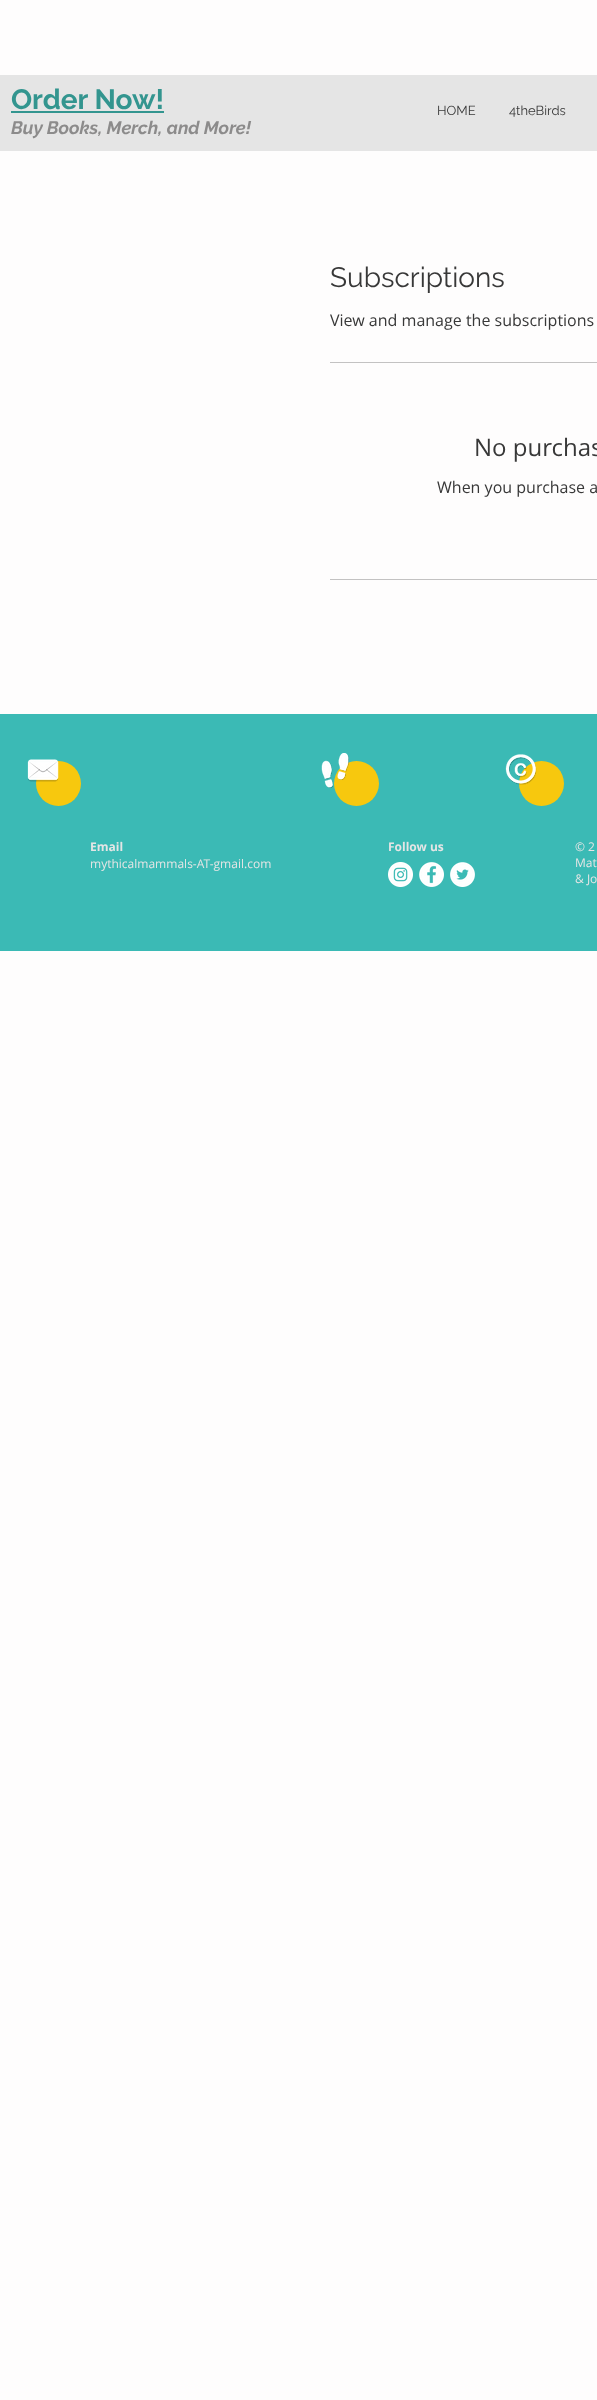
<!DOCTYPE html>
<meta charset="utf-8">
<style>body { margin: 0 } canvas { display: block }</style>
<canvas id="canvas" width="597" height="2400"></canvas>
<img id="img1" src="images/1.png" hidden>
<img id="img2" src="images/2.png" hidden>
<img id="img3" src="images/3.png" hidden>
<img id="img4" src="images/4.png" hidden>
<img id="img5" src="images/5.png" hidden>
<img id="img6" src="images/6.png" hidden>
<script>
window.onload = function () {
    const canvas = document.getElementById('canvas');
    const context = canvas.getContext('2d');
    context.miterLimit = 4;
    context.fontKerning = 'normal';

    context.fillStyle = 'rgb(254, 253, 253)';
    context.fillRect(0, 0, 597, 2400);
    context.fillStyle = 'rgb(229, 229, 229)';
    context.fillRect(0, 75, 597, 76);
    context.fillStyle = 'rgb(51, 149, 143)';
    context.fillRect(11, 111, 153, 2);
    context.fillStyle = 'rgb(195, 194, 194)';
    context.fillRect(330, 362, 267, 1);
    context.fillRect(330, 579, 267, 1);
    context.fillStyle = 'rgb(59, 186, 181)';
    context.fillRect(0, 714, 597, 237);
    context.fillStyle = 'rgb(247, 200, 14)';
    context.beginPath();
    context.arc(58.5, 783.5, 22.5, 0, 2 * Math.PI);
    context.fill();
    context.drawImage(document.getElementById('img1'), 27, 759, 32, 23);
    context.beginPath();
    context.arc(356.5, 783.5, 22.5, 0, 2 * Math.PI);
    context.fill();
    context.drawImage(document.getElementById('img2'), 321, 753, 28, 35);
    context.beginPath();
    context.arc(541.5, 783.5, 22.5, 0, 2 * Math.PI);
    context.fill();
    context.drawImage(document.getElementById('img3'), 505, 754, 32, 31);
    context.drawImage(document.getElementById('img4'), 388, 862, 25, 25);
    context.drawImage(document.getElementById('img5'), 419, 862, 25, 25);
    context.drawImage(document.getElementById('img6'), 450, 862, 25, 25);
    context.font = 'bold 28px Raleway';
    context.fillStyle = 'rgb(51, 149, 143)';
    context.fillText('Order Now!', 11, 109);
    context.font = 'italic bold 18px Raleway';
    context.fillStyle = 'rgb(140, 139, 139)';
    context.fillText('Buy Books, Merch, and More!', 11, 134);
    context.font = '13px Raleway';
    context.fillStyle = 'rgb(56, 56, 56)';
    context.fillText('HOME', 437, 115);
    context.fillText('4theBirds', 509, 115);
    context.font = '28px Raleway';
    context.fillText('Subscriptions', 330, 287);
    context.font = '16px Open Sans';
    context.fillText('View and manage the subscriptions', 330, 326);
    context.font = '24px Open Sans';
    context.fillText('No purchas', 474, 456);
    context.font = '16px Open Sans';
    context.fillText('When you purchase a', 437, 493);
    context.font = 'bold 12px Open Sans';
    context.fillStyle = 'rgb(229, 229, 229)';
    context.fillText('Email', 90, 851);
    context.font = '12px Open Sans';
    context.fillText('mythicalmammals-AT-gmail.com', 90, 868);
    context.font = 'bold 12px Open Sans';
    context.fillText('Follow us', 388, 851);
    context.font = '12px Open Sans';
    context.fillText('© 2', 575, 851);
    context.fillText('Mat', 575, 867);
    context.fillText('& Jo', 575, 883);
};
</script>
